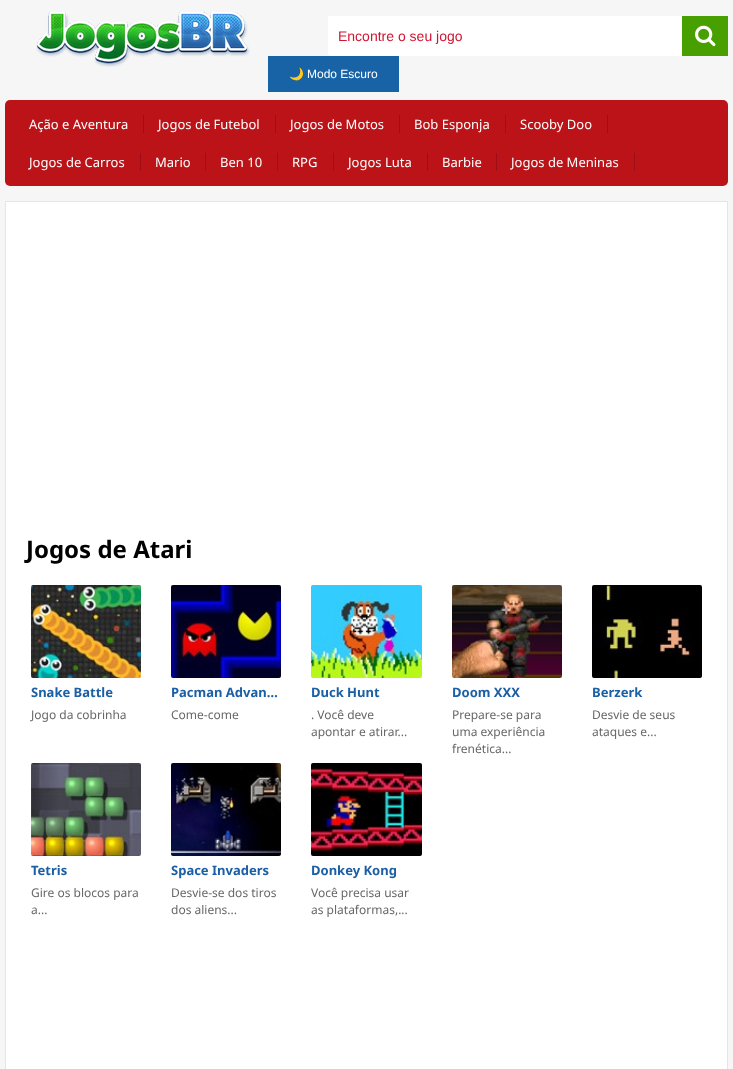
<!DOCTYPE html>
<meta charset="utf-8">
<style>body { margin: 0 } canvas { display: block }</style>
<canvas id="canvas" width="733" height="1069"></canvas>
<img id="img1" src="images/1.png" hidden>
<img id="img2" src="images/2.png" hidden>
<img id="img3" src="images/3.png" hidden>
<img id="img4" src="images/4.png" hidden>
<img id="img5" src="images/5.png" hidden>
<img id="img6" src="images/6.png" hidden>
<img id="img7" src="images/7.png" hidden>
<img id="img8" src="images/8.png" hidden>
<img id="img9" src="images/9.png" hidden>
<img id="img10" src="images/10.png" hidden>
<script>
window.onload = function () {
    const canvas = document.getElementById('canvas');
    const context = canvas.getContext('2d');
    context.miterLimit = 4;
    context.fontKerning = 'normal';

    context.fillStyle = 'rgb(246, 246, 246)';
    context.fillRect(0, 0, 733, 1069);
    context.drawImage(document.getElementById('img1'), 36, 12, 214, 55);
    context.fillStyle = 'rgb(255, 255, 255)';
    context.beginPath();
    context.roundRect(328, 16, 400, 40, 4);
    context.fill();
    context.fillRect(328, 16, 3, 3);
    context.fillStyle = 'rgb(72, 160, 0)';
    context.fillRect(682, 16, 46, 40);
    context.drawImage(document.getElementById('img2'), 695, 25, 21, 22);
    context.fillStyle = 'rgb(24, 98, 166)';
    context.fillRect(268, 56, 131, 36);
    context.fillStyle = 'rgb(187, 19, 23)';
    context.beginPath();
    context.roundRect(5, 100, 723, 86, 5);
    context.fill();
    context.fillStyle = 'rgb(156, 15, 24)';
    context.fillRect(143, 115, 1, 18);
    context.fillRect(275, 115, 1, 18);
    context.fillRect(399, 115, 1, 18);
    context.fillRect(505, 115, 1, 18);
    context.fillRect(607, 115, 1, 18);
    context.fillRect(140, 153, 1, 18);
    context.fillRect(205, 153, 1, 18);
    context.fillRect(277, 153, 1, 18);
    context.fillRect(333, 153, 1, 18);
    context.fillRect(427, 153, 1, 18);
    context.fillRect(496, 153, 1, 18);
    context.fillRect(634, 153, 1, 18);
    context.fillStyle = 'rgb(255, 255, 255)';
    context.beginPath();
    context.rect(5.5, 201.5, 722, 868);
    context.fill();
    context.strokeStyle = 'rgb(229, 229, 229)';
    context.stroke();
    context.drawImage(document.getElementById('img3'), 31, 585, 110, 93);
    context.drawImage(document.getElementById('img4'), 171, 585, 110, 93);
    context.drawImage(document.getElementById('img5'), 311, 585, 111, 93);
    context.drawImage(document.getElementById('img6'), 452, 585, 110, 93);
    context.drawImage(document.getElementById('img7'), 592, 585, 110, 93);
    context.drawImage(document.getElementById('img8'), 31, 763, 110, 93);
    context.drawImage(document.getElementById('img9'), 171, 763, 110, 93);
    context.drawImage(document.getElementById('img10'), 311, 763, 111, 93);
    context.font = '14px Liberation Sans';
    context.fillStyle = 'rgb(208, 21, 51)';
    context.fillText('Encontre o seu jogo', 338, 41);
    context.font = '12px Noto Color Emoji';
    context.fillStyle = 'rgb(255, 255, 255)';
    context.fillText('🌙', 289, 78);
    context.font = '12px Liberation Sans';
    context.fillText('Modo Escuro', 307, 78);
    context.font = '13px Noto Sans';
    context.fillText('Ação e Aventura', 29, 129);
    context.fillText('Jogos de Futebol', 158, 129);
    context.fillText('Jogos de Motos', 290, 129);
    context.fillText('Bob Esponja', 414, 129);
    context.fillText('Scooby Doo', 520, 129);
    context.fillText('Jogos de Carros', 29, 167);
    context.fillText('Mario', 155, 167);
    context.fillText('Ben 10', 220, 167);
    context.fillText('RPG', 292, 167);
    context.fillText('Jogos Luta', 348, 167);
    context.fillText('Barbie', 442, 167);
    context.fillText('Jogos de Meninas', 511, 167);
    context.font = 'bold 24px Noto Sans';
    context.fillStyle = 'rgb(0, 0, 0)';
    context.fillText('Jogos de Atari', 26, 558);
    context.font = 'bold 13px Noto Sans';
    context.fillStyle = 'rgb(27, 95, 165)';
    context.fillText('Snake Battle', 31, 697);
    context.font = '12px Noto Sans';
    context.fillStyle = 'rgb(103, 103, 103)';
    context.fillText('Jogo da cobrinha', 31, 719);
    context.font = 'bold 13px Noto Sans';
    context.fillStyle = 'rgb(27, 95, 165)';
    context.fillText('Pacman Advan…', 171, 697);
    context.font = '12px Noto Sans';
    context.fillStyle = 'rgb(103, 103, 103)';
    context.fillText('Come-come', 171, 719);
    context.font = 'bold 13px Noto Sans';
    context.fillStyle = 'rgb(27, 95, 165)';
    context.fillText('Duck Hunt', 311, 697);
    context.font = '12px Noto Sans';
    context.fillStyle = 'rgb(103, 103, 103)';
    context.fillText('. Você deve', 311, 719);
    context.fillText('apontar e atirar...', 311, 736);
    context.font = 'bold 13px Noto Sans';
    context.fillStyle = 'rgb(27, 95, 165)';
    context.fillText('Doom XXX', 452, 697);
    context.font = '12px Noto Sans';
    context.fillStyle = 'rgb(103, 103, 103)';
    context.fillText('Prepare-se para', 452, 719);
    context.fillText('uma experiência', 452, 736);
    context.fillText('frenética...', 452, 753);
    context.font = 'bold 13px Noto Sans';
    context.fillStyle = 'rgb(27, 95, 165)';
    context.fillText('Berzerk', 592, 697);
    context.font = '12px Noto Sans';
    context.fillStyle = 'rgb(103, 103, 103)';
    context.fillText('Desvie de seus', 592, 719);
    context.fillText('ataques e...', 592, 736);
    context.font = 'bold 13px Noto Sans';
    context.fillStyle = 'rgb(27, 95, 165)';
    context.fillText('Tetris', 31, 875);
    context.font = '12px Noto Sans';
    context.fillStyle = 'rgb(103, 103, 103)';
    context.fillText('Gire os blocos para', 31, 897);
    context.fillText('a...', 31, 914);
    context.font = 'bold 13px Noto Sans';
    context.fillStyle = 'rgb(27, 95, 165)';
    context.fillText('Space Invaders', 171, 875);
    context.font = '12px Noto Sans';
    context.fillStyle = 'rgb(103, 103, 103)';
    context.fillText('Desvie-se dos tiros', 171, 897);
    context.fillText('dos aliens...', 171, 914);
    context.font = 'bold 13px Noto Sans';
    context.fillStyle = 'rgb(27, 95, 165)';
    context.fillText('Donkey Kong', 311, 875);
    context.font = '12px Noto Sans';
    context.fillStyle = 'rgb(103, 103, 103)';
    context.fillText('Você precisa usar', 311, 897);
    context.fillText('as plataformas,...', 311, 914);
};
</script>
